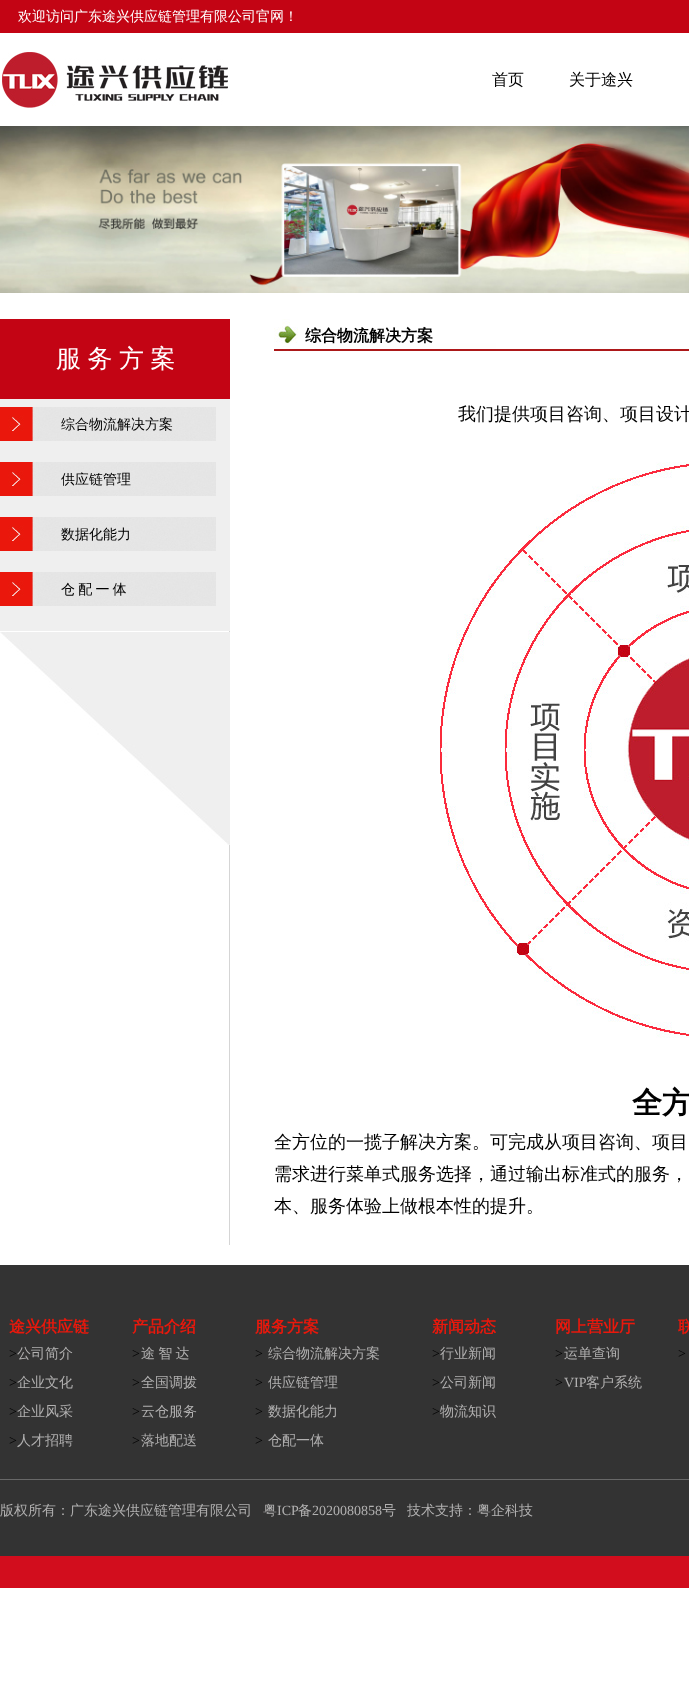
<!DOCTYPE html>
<meta charset="utf-8">
<style>body { margin: 0 } canvas { display: block }</style>
<canvas id="canvas" width="689" height="1707"></canvas>
<img id="img1" src="images/1.png" hidden>
<img id="img2" src="images/2.png" hidden>
<img id="img3" src="images/3.png" hidden>
<img id="img4" src="images/4.png" hidden>
<img id="img5" src="images/5.png" hidden>
<img id="img6" src="images/6.png" hidden>
<script>
window.onload = function () {
    const canvas = document.getElementById('canvas');
    const context = canvas.getContext('2d');
    context.miterLimit = 4;
    context.fontKerning = 'normal';

    context.fillStyle = 'rgb(255, 255, 255)';
    context.fillRect(0, 0, 689, 1707);
    context.fillStyle = 'rgb(195, 4, 20)';
    context.fillRect(0, 0, 689, 33);
    context.drawImage(document.getElementById('img1'), 2, 52, 226, 56);
    context.drawImage(document.getElementById('img2'), 0, 126, 689, 167);
    context.fillStyle = 'rgb(213, 213, 213)';
    context.fillRect(229, 631, 1, 614);
    context.fillStyle = 'rgb(195, 4, 20)';
    context.fillRect(0, 319, 230, 80);
    context.fillStyle = 'rgb(239, 239, 239)';
    context.fillRect(0, 399, 230, 232);
    context.drawImage(document.getElementById('img3'), 0, 407, 216, 34);
    context.drawImage(document.getElementById('img3'), 0, 462, 216, 34);
    context.drawImage(document.getElementById('img3'), 0, 517, 216, 34);
    context.drawImage(document.getElementById('img3'), 0, 572, 216, 34);
    context.drawImage(document.getElementById('img4'), 0, 632, 230, 213);
    context.drawImage(document.getElementById('img5'), 274, 319, 222, 32);
    context.fillStyle = 'rgb(173, 24, 26)';
    context.fillRect(496, 349, 193, 2);
    context.drawImage(document.getElementById('img6'), 440, 462, 249, 576);
    context.fillStyle = 'rgb(51, 51, 51)';
    context.fillRect(0, 1265, 689, 291);
    context.fillStyle = 'rgb(104, 104, 104)';
    context.fillRect(0, 1479, 689, 1);
    context.fillStyle = 'rgb(210, 13, 29)';
    context.fillRect(0, 1556, 689, 32);
    context.font = '500 14px WenQuanYi Zen Hei';
    context.fillStyle = 'rgb(255, 255, 255)';
    context.fillText('欢迎访问广东途兴供应链管理有限公司官网！', 18, 21);
    context.font = '500 16px WenQuanYi Zen Hei';
    context.fillStyle = 'rgb(0, 0, 0)';
    context.fillText('首页', 492, 85);
    context.fillText('关于途兴', 569, 85);
    context.wordSpacing = '-1px';
    context.font = '500 25px WenQuanYi Zen Hei';
    context.fillStyle = 'rgb(255, 255, 255)';
    context.fillText('服 务 方 案', 56, 367);
    context.wordSpacing = '0px';
    context.font = '500 14px WenQuanYi Zen Hei';
    context.fillStyle = 'rgb(0, 0, 0)';
    context.fillText('综合物流解决方案', 61, 429);
    context.fillText('供应链管理', 61, 484);
    context.fillText('数据化能力', 61, 539);
    context.wordSpacing = '-1px';
    context.fillText('仓 配 一 体', 61, 594);
    context.wordSpacing = '0px';
    context.font = 'bold 16px WenQuanYi Zen Hei';
    context.fillText('综合物流解决方案', 305, 341);
    context.font = '500 18px WenQuanYi Zen Hei';
    context.fillText('我们提供项目咨询、项目设计', 458, 420);
    context.font = 'bold 30px WenQuanYi Zen Hei';
    context.fillText('全方', 632, 1113);
    context.wordSpacing = '-1px';
    context.font = '500 18px WenQuanYi Zen Hei';
    context.fillText('全方位的一揽子解决方案。可完成从项目咨询、项目', 274, 1148);
    context.fillText('需求进行菜单式服务选择，通过输出标准式的服务，', 274, 1180);
    context.wordSpacing = '0px';
    context.fillText('本、服务体验上做根本性的提升。', 274, 1212);
    context.font = 'bold 16px WenQuanYi Zen Hei';
    context.fillStyle = 'rgb(233, 24, 12)';
    context.fillText('途兴供应链', 9, 1332);
    context.font = '14px Liberation Serif';
    context.fillStyle = 'rgb(0, 0, 0)';
    context.fillText('>', 9, 1358);
    context.font = '500 14px WenQuanYi Zen Hei';
    context.fillStyle = 'rgb(177, 176, 176)';
    context.fillText('公司简介', 17, 1358);
    context.font = '14px Liberation Serif';
    context.fillStyle = 'rgb(0, 0, 0)';
    context.fillText('>', 9, 1387);
    context.font = '500 14px WenQuanYi Zen Hei';
    context.fillStyle = 'rgb(177, 176, 176)';
    context.fillText('企业文化', 17, 1387);
    context.font = '14px Liberation Serif';
    context.fillStyle = 'rgb(0, 0, 0)';
    context.fillText('>', 9, 1416);
    context.font = '500 14px WenQuanYi Zen Hei';
    context.fillStyle = 'rgb(177, 176, 176)';
    context.fillText('企业风采', 17, 1416);
    context.font = '14px Liberation Serif';
    context.fillStyle = 'rgb(0, 0, 0)';
    context.fillText('>', 9, 1445);
    context.font = '500 14px WenQuanYi Zen Hei';
    context.fillStyle = 'rgb(177, 176, 176)';
    context.fillText('人才招聘', 17, 1445);
    context.font = 'bold 16px WenQuanYi Zen Hei';
    context.fillStyle = 'rgb(233, 24, 12)';
    context.fillText('产品介绍', 132, 1332);
    context.font = '14px Liberation Serif';
    context.fillStyle = 'rgb(0, 0, 0)';
    context.fillText('>', 132, 1358);
    context.wordSpacing = '-1px';
    context.font = '500 14px WenQuanYi Zen Hei';
    context.fillStyle = 'rgb(177, 176, 176)';
    context.fillText('途 智 达', 141, 1358);
    context.wordSpacing = '0px';
    context.font = '14px Liberation Serif';
    context.fillStyle = 'rgb(0, 0, 0)';
    context.fillText('>', 132, 1387);
    context.font = '500 14px WenQuanYi Zen Hei';
    context.fillStyle = 'rgb(177, 176, 176)';
    context.fillText('全国调拨', 141, 1387);
    context.font = '14px Liberation Serif';
    context.fillStyle = 'rgb(0, 0, 0)';
    context.fillText('>', 132, 1416);
    context.font = '500 14px WenQuanYi Zen Hei';
    context.fillStyle = 'rgb(177, 176, 176)';
    context.fillText('云仓服务', 141, 1416);
    context.font = '14px Liberation Serif';
    context.fillStyle = 'rgb(0, 0, 0)';
    context.fillText('>', 132, 1445);
    context.font = '500 14px WenQuanYi Zen Hei';
    context.fillStyle = 'rgb(177, 176, 176)';
    context.fillText('落地配送', 141, 1445);
    context.font = 'bold 16px WenQuanYi Zen Hei';
    context.fillStyle = 'rgb(233, 24, 12)';
    context.fillText('服务方案', 255, 1332);
    context.font = '14px Liberation Serif';
    context.fillStyle = 'rgb(0, 0, 0)';
    context.fillText('>', 255, 1358);
    context.font = '500 14px WenQuanYi Zen Hei';
    context.fillStyle = 'rgb(177, 176, 176)';
    context.fillText('综合物流解决方案', 268, 1358);
    context.font = '14px Liberation Serif';
    context.fillStyle = 'rgb(0, 0, 0)';
    context.fillText('>', 255, 1387);
    context.font = '500 14px WenQuanYi Zen Hei';
    context.fillStyle = 'rgb(177, 176, 176)';
    context.fillText('供应链管理', 268, 1387);
    context.font = '14px Liberation Serif';
    context.fillStyle = 'rgb(0, 0, 0)';
    context.fillText('>', 255, 1416);
    context.font = '500 14px WenQuanYi Zen Hei';
    context.fillStyle = 'rgb(177, 176, 176)';
    context.fillText('数据化能力', 268, 1416);
    context.font = '14px Liberation Serif';
    context.fillStyle = 'rgb(0, 0, 0)';
    context.fillText('>', 255, 1445);
    context.font = '500 14px WenQuanYi Zen Hei';
    context.fillStyle = 'rgb(177, 176, 176)';
    context.fillText('仓配一体', 268, 1445);
    context.font = 'bold 16px WenQuanYi Zen Hei';
    context.fillStyle = 'rgb(233, 24, 12)';
    context.fillText('新闻动态', 432, 1332);
    context.font = '14px Liberation Serif';
    context.fillStyle = 'rgb(0, 0, 0)';
    context.fillText('>', 432, 1358);
    context.font = '500 14px WenQuanYi Zen Hei';
    context.fillStyle = 'rgb(177, 176, 176)';
    context.fillText('行业新闻', 440, 1358);
    context.font = '14px Liberation Serif';
    context.fillStyle = 'rgb(0, 0, 0)';
    context.fillText('>', 432, 1387);
    context.font = '500 14px WenQuanYi Zen Hei';
    context.fillStyle = 'rgb(177, 176, 176)';
    context.fillText('公司新闻', 440, 1387);
    context.font = '14px Liberation Serif';
    context.fillStyle = 'rgb(0, 0, 0)';
    context.fillText('>', 432, 1416);
    context.font = '500 14px WenQuanYi Zen Hei';
    context.fillStyle = 'rgb(177, 176, 176)';
    context.fillText('物流知识', 440, 1416);
    context.font = 'bold 16px WenQuanYi Zen Hei';
    context.fillStyle = 'rgb(233, 24, 12)';
    context.fillText('网上营业厅', 555, 1332);
    context.font = '14px Liberation Serif';
    context.fillStyle = 'rgb(0, 0, 0)';
    context.fillText('>', 555, 1358);
    context.font = '500 14px WenQuanYi Zen Hei';
    context.fillStyle = 'rgb(177, 176, 176)';
    context.fillText('运单查询', 564, 1358);
    context.font = '14px Liberation Serif';
    context.fillStyle = 'rgb(0, 0, 0)';
    context.fillText('>', 555, 1387);
    context.fillStyle = 'rgb(177, 176, 176)';
    context.fillText('VIP', 564, 1387);
    context.font = '500 14px WenQuanYi Zen Hei';
    context.fillText('客户系统', 586, 1387);
    context.font = 'bold 16px WenQuanYi Zen Hei';
    context.fillStyle = 'rgb(233, 24, 12)';
    context.fillText('联', 678, 1332);
    context.font = '14px Liberation Serif';
    context.fillStyle = 'rgb(0, 0, 0)';
    context.fillText('>', 678, 1358);
    context.font = '500 14px WenQuanYi Zen Hei';
    context.fillStyle = 'rgb(177, 176, 176)';
    context.fillText('版权所有：广东途兴供应链管理有限公司', 0, 1515);
    context.fillText('粤', 263, 1515);
    context.font = '14px Liberation Serif';
    context.fillText('ICP', 277, 1515);
    context.font = '500 14px WenQuanYi Zen Hei';
    context.fillText('备', 298, 1515);
    context.font = '14px Liberation Serif';
    context.fillText('2020080858', 312, 1515);
    context.font = '500 14px WenQuanYi Zen Hei';
    context.fillText('号', 382, 1515);
    context.fillText('技术支持：粤企科技', 407, 1515);
};
</script>
